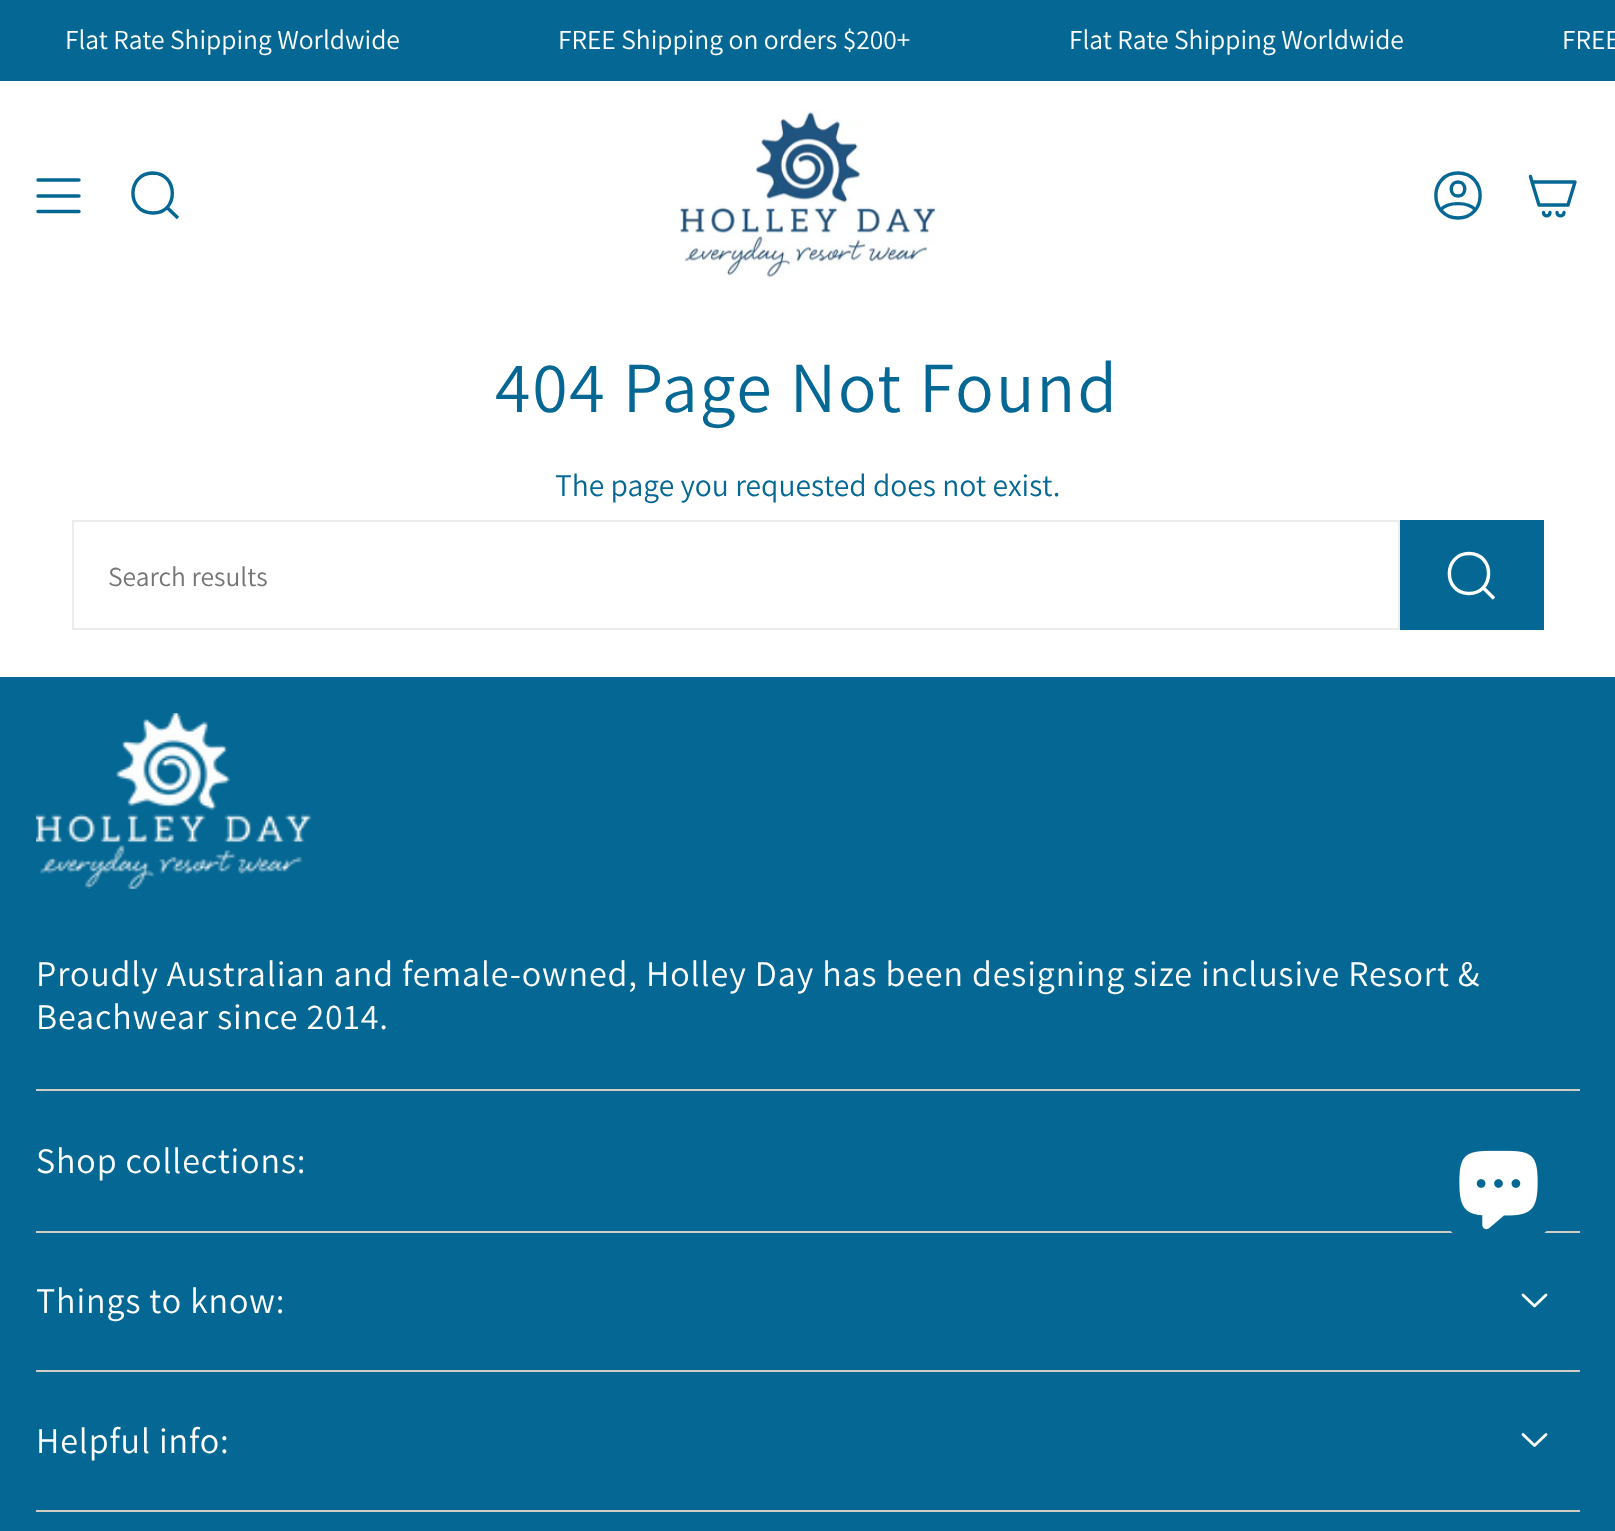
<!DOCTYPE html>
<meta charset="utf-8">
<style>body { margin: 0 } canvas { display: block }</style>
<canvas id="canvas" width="1615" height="1531"></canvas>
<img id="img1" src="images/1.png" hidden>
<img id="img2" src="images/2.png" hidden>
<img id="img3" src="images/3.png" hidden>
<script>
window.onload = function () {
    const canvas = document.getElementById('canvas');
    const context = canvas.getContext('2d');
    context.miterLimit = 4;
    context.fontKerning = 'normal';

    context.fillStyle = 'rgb(255, 255, 255)';
    context.fillRect(0, 0, 1615, 1531);
    context.fillStyle = 'rgb(5, 104, 148)';
    context.fillRect(0, 0, 1615, 81);
    context.beginPath();
    context.moveTo(38, 180);
    context.lineTo(79, 180);
    context.moveTo(38, 196);
    context.lineTo(79, 196);
    context.moveTo(38, 211.5);
    context.lineTo(79, 211.5);
    context.strokeStyle = 'rgb(5, 104, 148)';
    context.lineWidth = 3.4;
    context.lineCap = 'round';
    context.lineJoin = 'round';
    context.stroke();
    context.beginPath();
    context.moveTo(152.5, 173);
    context.bezierCurveTo(179, 173, 179, 214.5, 152, 213);
    context.bezierCurveTo(126, 212, 127, 173.5, 152.5, 173);
    context.closePath();
    context.moveTo(167, 207.5);
    context.lineTo(178, 218);
    context.lineCap = 'butt';
    context.lineJoin = 'miter';
    context.stroke();
    context.drawImage(document.getElementById('img1'), 676, 110, 261, 169);
    context.beginPath();
    context.moveTo(1458, 173);
    context.bezierCurveTo(1428.5, 173, 1428.5, 218, 1458, 218);
    context.bezierCurveTo(1487.5, 218, 1487.5, 173, 1458, 173);
    context.closePath();
    context.moveTo(1440.5, 210);
    context.bezierCurveTo(1447.5, 201.5, 1468.5, 201.5, 1475.5, 210);
    context.moveTo(1458, 196);
    context.bezierCurveTo(1467, 196, 1467, 182, 1458, 182);
    context.bezierCurveTo(1449, 182, 1449, 196, 1458, 196);
    context.closePath();
    context.lineCap = 'round';
    context.lineJoin = 'round';
    context.stroke();
    context.beginPath();
    context.moveTo(1532, 182);
    context.lineTo(1575, 182);
    context.lineTo(1568, 205);
    context.lineTo(1539, 205);
    context.closePath();
    context.moveTo(1532, 182);
    context.lineTo(1530.5, 176.5);
    context.moveTo(1550, 212.5);
    context.bezierCurveTo(1550, 217, 1543.5, 217, 1543.5, 212.5);
    context.moveTo(1564, 212.5);
    context.bezierCurveTo(1564, 217, 1557, 217, 1557, 212.5);
    context.stroke();
    context.strokeStyle = 'rgb(237, 237, 237)';
    context.lineWidth = 2;
    context.lineJoin = 'miter';
    context.strokeRect(73, 521, 1326, 108);
    context.fillRect(1400, 520, 144, 110);
    context.beginPath();
    context.moveTo(1469, 553.5);
    context.bezierCurveTo(1495.5, 553.5, 1495, 594.5, 1468, 593.5);
    context.bezierCurveTo(1442.5, 592, 1443.5, 553.5, 1469, 553.5);
    context.closePath();
    context.moveTo(1483, 587.5);
    context.lineTo(1494, 598.5);
    context.strokeStyle = 'rgb(255, 255, 255)';
    context.lineWidth = 3.4;
    context.lineCap = 'butt';
    context.stroke();
    context.fillRect(0, 677, 1615, 854);
    context.drawImage(document.getElementById('img2'), 36, 713, 276, 176);
    context.fillStyle = 'rgb(209, 205, 196)';
    context.fillRect(36, 1089, 1544, 2);
    context.fillRect(36, 1231, 1544, 2);
    context.fillRect(36, 1370, 1544, 2);
    context.beginPath();
    context.moveTo(1523, 1295);
    context.lineTo(1534.5, 1306);
    context.lineTo(1546, 1295);
    context.lineWidth = 2.8;
    context.lineCap = 'round';
    context.lineJoin = 'round';
    context.stroke();
    context.fillRect(36, 1510, 1544, 2);
    context.beginPath();
    context.moveTo(1523, 1434.5);
    context.lineTo(1534.5, 1445.5);
    context.lineTo(1546, 1434.5);
    context.stroke();
    context.fillStyle = 'rgb(5, 104, 148)';
    context.beginPath();
    context.arc(1498.5, 1183.5, 67.5, 0, 2 * Math.PI);
    context.fill();
    context.drawImage(document.getElementById('img3'), 1459, 1150, 79, 80);
    context.font = '27.5px Assistant';
    context.fillStyle = 'rgb(255, 255, 255)';
    context.fillText('Flat Rate Shipping Worldwide', 65, 49);
    context.fillText('FREE Shipping on orders $200+', 558, 49);
    context.fillText('Flat Rate Shipping Worldwide', 1069, 49);
    context.fillText('FREE', 1562, 49);
    context.letterSpacing = '1.75px';
    context.font = '72px Assistant';
    context.fillStyle = 'rgb(5, 104, 148)';
    context.fillText('404 Page Not Found', 495, 412);
    context.letterSpacing = '0px';
    context.font = '31.5px Assistant';
    context.fillText('The page you requested does not exist.', 555, 496);
    context.font = '27.5px Assistant';
    context.fillStyle = 'rgb(117, 117, 117)';
    context.fillText('Search results', 108, 586);
    context.letterSpacing = '0.9px';
    context.font = '36px Assistant';
    context.fillStyle = 'rgb(255, 255, 255)';
    context.fillText('Proudly Australian and female-owned, Holley Day has been designing size inclusive Resort &', 36, 986);
    context.fillText('Beachwear since 2014.', 36, 1029);
    context.fillText('Shop collections:', 36, 1173);
    context.fillText('Things to know:', 36, 1313);
    context.fillText('Helpful info:', 36, 1453);
};
</script>
